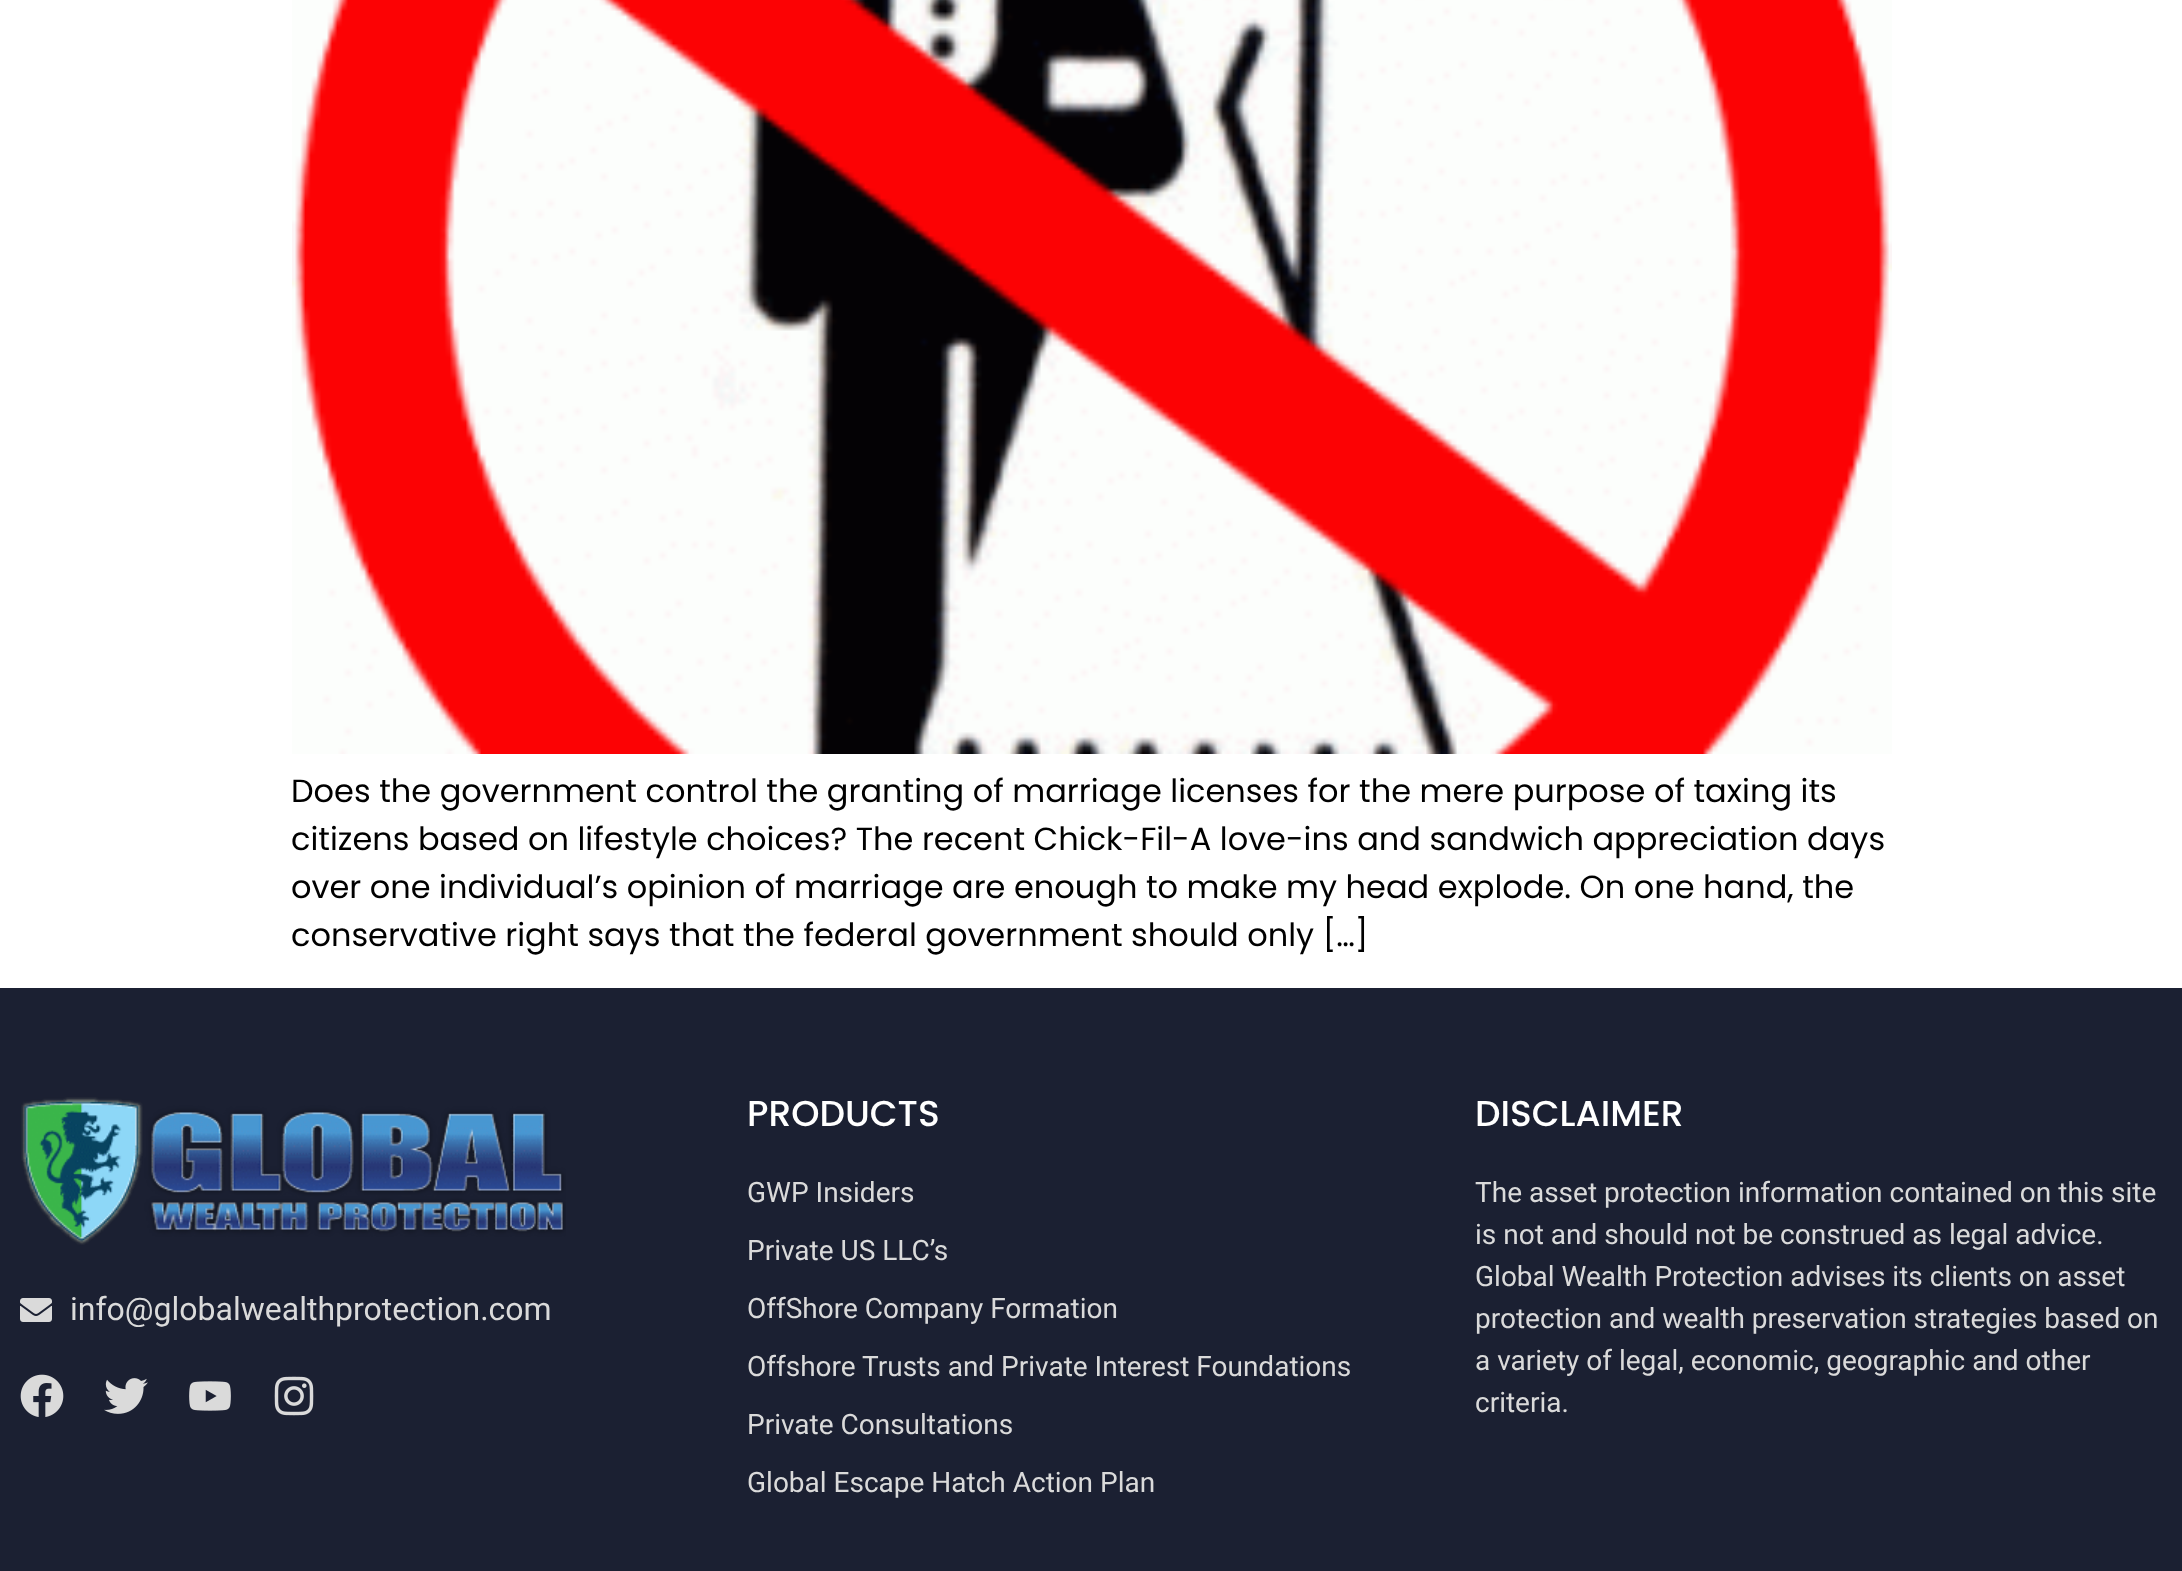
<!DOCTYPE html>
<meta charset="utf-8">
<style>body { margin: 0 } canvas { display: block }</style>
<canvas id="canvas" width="2182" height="1571"></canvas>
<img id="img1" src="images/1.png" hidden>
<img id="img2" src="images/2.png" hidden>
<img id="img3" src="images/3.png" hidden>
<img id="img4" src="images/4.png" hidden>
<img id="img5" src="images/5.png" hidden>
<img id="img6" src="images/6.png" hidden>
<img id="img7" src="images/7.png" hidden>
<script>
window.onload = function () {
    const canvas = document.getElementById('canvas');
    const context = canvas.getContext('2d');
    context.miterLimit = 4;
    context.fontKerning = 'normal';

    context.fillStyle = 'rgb(255, 255, 255)';
    context.fillRect(0, 0, 2182, 1571);
    context.drawImage(document.getElementById('img1'), 292, 0, 1600, 754);
    context.fillStyle = 'rgb(27, 32, 50)';
    context.fillRect(0, 988, 2182, 583);
    context.drawImage(document.getElementById('img2'), 21, 1097, 545, 148);
    context.drawImage(document.getElementById('img3'), 20, 1298, 32, 24);
    context.drawImage(document.getElementById('img4'), 20, 1374, 44, 43);
    context.drawImage(document.getElementById('img5'), 104, 1378, 44, 36);
    context.drawImage(document.getElementById('img6'), 189, 1381, 42, 30);
    context.drawImage(document.getElementById('img7'), 274, 1376, 40, 40);
    context.font = '32px Poppins';
    context.fillStyle = 'rgb(0, 0, 0)';
    context.fillText('Does the government control the granting of marriage licenses for the mere purpose of taxing its', 291, 802);
    context.fillText('citizens based on lifestyle choices? The recent Chick-Fil-A love-ins and sandwich appreciation days', 291, 850);
    context.fillText('over one individual’s opinion of marriage are enough to make my head explode. On one hand, the', 291, 898);
    context.fillText('conservative right says that the federal government should only […]', 291, 946);
    context.font = '32px Roboto';
    context.fillStyle = 'rgb(218, 218, 218)';
    context.fillText('info@globalwealthprotection.com', 70, 1320);
    context.font = '500 36px Poppins';
    context.fillStyle = 'rgb(255, 255, 255)';
    context.fillText('PRODUCTS', 747, 1126);
    context.font = '28px Roboto';
    context.fillStyle = 'rgb(218, 218, 218)';
    context.fillText('GWP Insiders', 747, 1202);
    context.fillText('Private US LLC’s', 747, 1260);
    context.fillText('OffShore Company Formation', 747, 1318);
    context.fillText('Offshore Trusts and Private Interest Foundations', 747, 1376);
    context.fillText('Private Consultations', 747, 1434);
    context.fillText('Global Escape Hatch Action Plan', 747, 1492);
    context.font = '500 36px Poppins';
    context.fillStyle = 'rgb(255, 255, 255)';
    context.fillText('DISCLAIMER', 1475, 1126);
    context.font = '28px Roboto';
    context.fillStyle = 'rgb(218, 218, 218)';
    context.fillText('The asset protection information contained on this site', 1475, 1202);
    context.fillText('is not and should not be construed as legal advice.', 1475, 1244);
    context.fillText('Global Wealth Protection advises its clients on asset', 1475, 1286);
    context.fillText('protection and wealth preservation strategies based on', 1475, 1328);
    context.fillText('a variety of legal, economic, geographic and other', 1475, 1370);
    context.fillText('criteria.', 1475, 1412);
};
</script>
